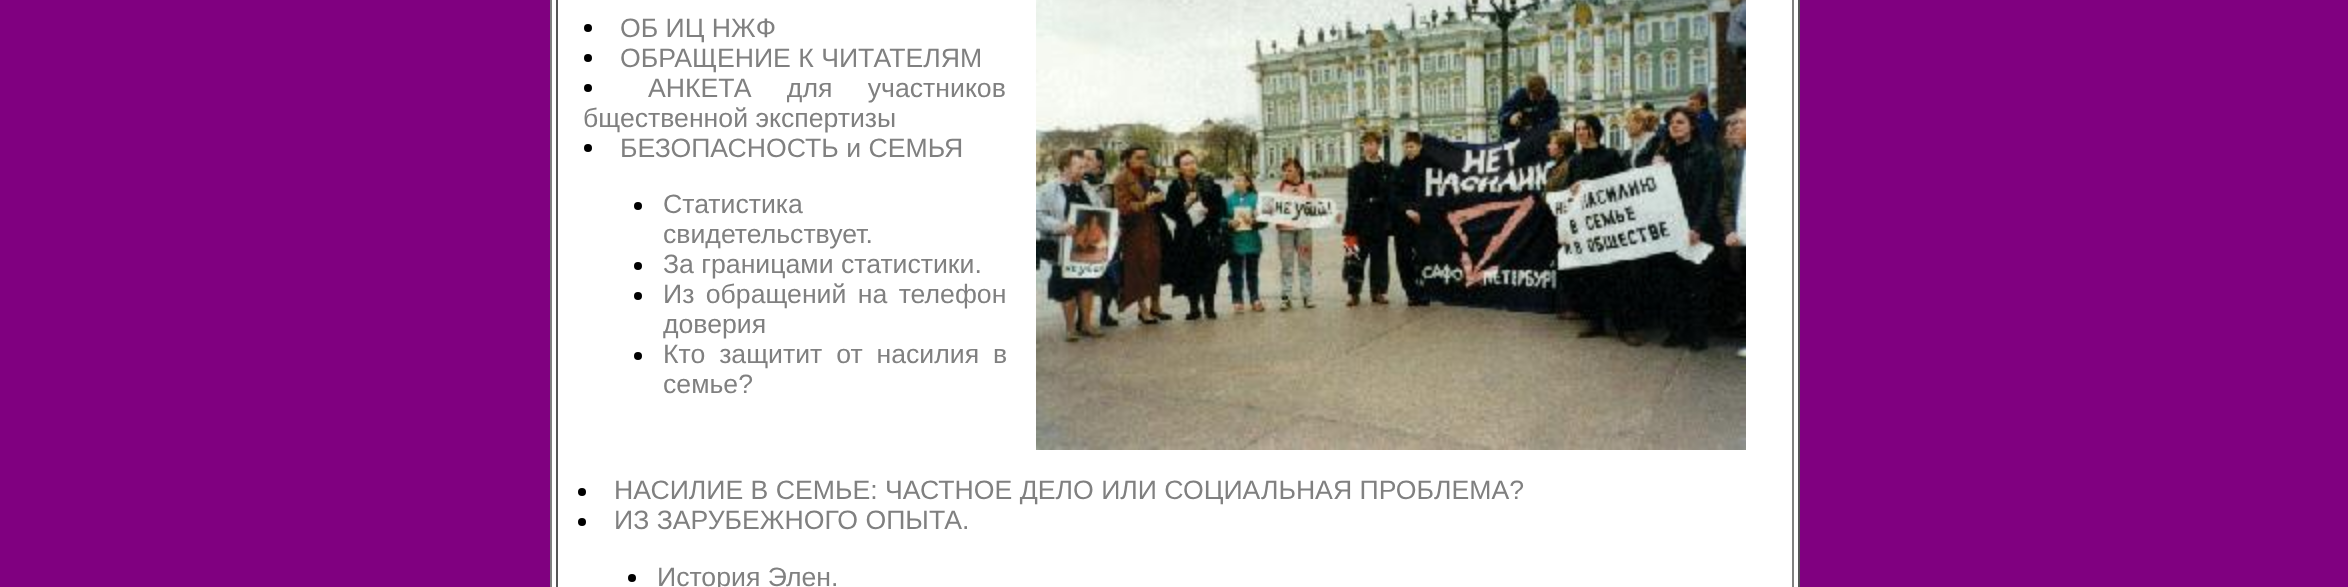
<!DOCTYPE html>
<meta charset="utf-8">
<style>body { margin: 0 } canvas { display: block }</style>
<canvas id="canvas" width="2348" height="587"></canvas>
<img id="img1" src="images/1.png" hidden>
<script>
window.onload = function () {
    const canvas = document.getElementById('canvas');
    const context = canvas.getContext('2d');
    context.miterLimit = 4;
    context.fontKerning = 'normal';

    context.fillStyle = 'rgb(128, 0, 128)';
    context.fillRect(0, 0, 2348, 587);
    context.fillStyle = 'rgb(255, 255, 255)';
    context.fillRect(552, 0, 1246, 587);
    context.fillStyle = 'rgb(85, 85, 85)';
    context.fillRect(1798, 0, 2, 587);
    context.fillStyle = 'rgb(128, 128, 128)';
    context.fillRect(550, 0, 2, 587);
    context.fillRect(1792, 0, 2, 587);
    context.fillStyle = 'rgb(85, 85, 85)';
    context.fillRect(556, 0, 2, 587);
    context.fillStyle = 'rgb(0, 0, 0)';
    context.beginPath();
    context.arc(588, 28, 4, 0, 2 * Math.PI);
    context.fill();
    context.beginPath();
    context.arc(588, 58, 4, 0, 2 * Math.PI);
    context.fill();
    context.beginPath();
    context.arc(588, 88, 4, 0, 2 * Math.PI);
    context.fill();
    context.beginPath();
    context.arc(588, 148, 4, 0, 2 * Math.PI);
    context.fill();
    context.beginPath();
    context.arc(638, 206, 4, 0, 2 * Math.PI);
    context.fill();
    context.beginPath();
    context.arc(638, 266, 4, 0, 2 * Math.PI);
    context.fill();
    context.beginPath();
    context.arc(638, 296, 4, 0, 2 * Math.PI);
    context.fill();
    context.beginPath();
    context.arc(638, 356, 4, 0, 2 * Math.PI);
    context.fill();
    context.drawImage(document.getElementById('img1'), 1036, 0, 710, 450);
    context.beginPath();
    context.arc(582, 492, 4, 0, 2 * Math.PI);
    context.fill();
    context.beginPath();
    context.arc(582, 522, 4, 0, 2 * Math.PI);
    context.fill();
    context.beginPath();
    context.arc(632, 578, 4, 0, 2 * Math.PI);
    context.fill();
    context.font = '26.65px Liberation Sans';
    context.fillStyle = 'rgb(128, 128, 128)';
    context.fillText('ОБ ИЦ НЖФ', 620, 37);
    context.fillText('ОБРАЩЕНИЕ К ЧИТАТЕЛЯМ', 620, 67);
    context.wordSpacing = '28px';
    context.fillText('АНКЕТА для участников', 648, 97);
    context.wordSpacing = '0px';
    context.fillText('бщественной экспертизы', 583, 127);
    context.fillText('БЕЗОПАСНОСТЬ и СЕМЬЯ', 620, 157);
    context.fillText('Статистика', 663, 213);
    context.fillText('свидетельствует.', 663, 243);
    context.fillText('За границами статистики.', 663, 273);
    context.wordSpacing = '4px';
    context.fillText('Из обращений на телефон', 663, 303);
    context.wordSpacing = '0px';
    context.fillText('доверия', 663, 333);
    context.wordSpacing = '6.5px';
    context.fillText('Кто защитит от насилия в', 663, 363);
    context.wordSpacing = '0px';
    context.fillText('семье?', 663, 393);
    context.fillText('НАСИЛИЕ В СЕМЬЕ: ЧАСТНОЕ ДЕЛО ИЛИ СОЦИАЛЬНАЯ ПРОБЛЕМА?', 614, 499);
    context.fillText('ИЗ ЗАРУБЕЖНОГО ОПЫТА.', 614, 529);
    context.fillText('История Элен.', 657, 586);
};
</script>
